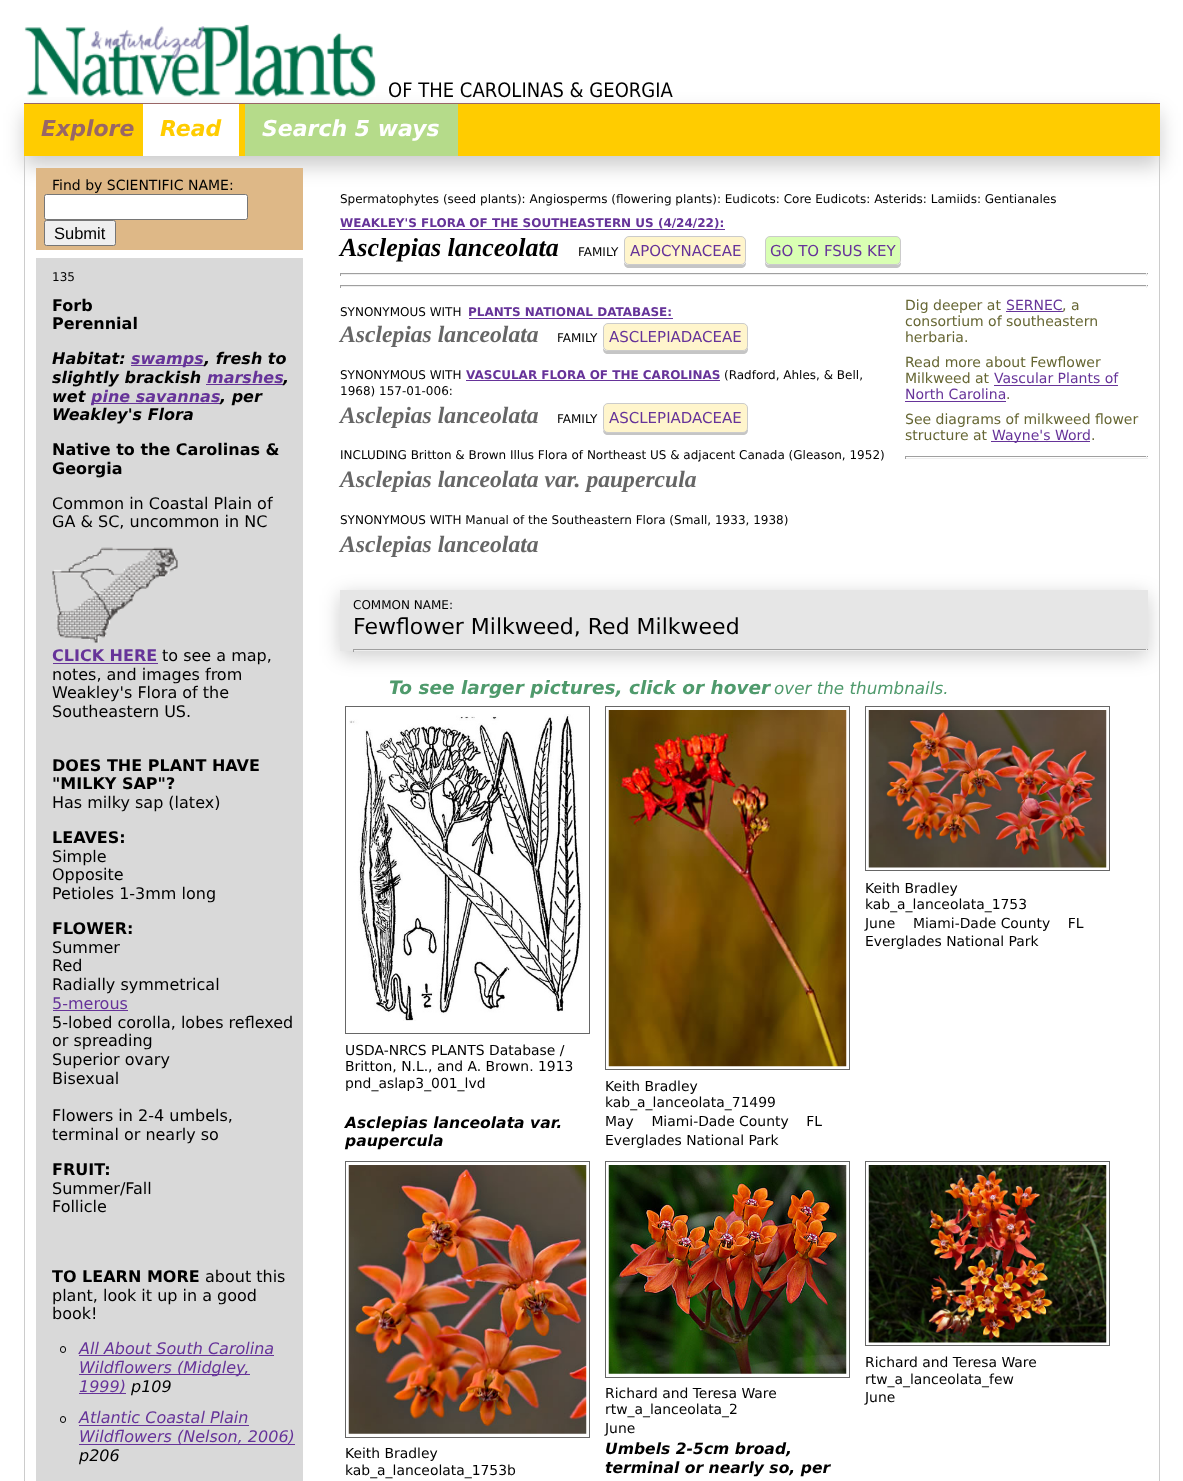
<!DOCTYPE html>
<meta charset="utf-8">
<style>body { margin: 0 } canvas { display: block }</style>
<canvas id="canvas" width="1183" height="1481"></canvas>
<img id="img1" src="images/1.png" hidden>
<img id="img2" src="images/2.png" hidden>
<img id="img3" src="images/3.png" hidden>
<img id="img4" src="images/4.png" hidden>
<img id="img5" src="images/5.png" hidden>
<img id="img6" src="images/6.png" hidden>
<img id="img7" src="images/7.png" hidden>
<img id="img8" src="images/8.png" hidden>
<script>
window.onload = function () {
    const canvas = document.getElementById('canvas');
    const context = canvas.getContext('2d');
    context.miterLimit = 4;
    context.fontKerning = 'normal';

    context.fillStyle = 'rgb(255, 255, 255)';
    context.fillRect(0, 0, 1183, 1481);
    context.fillStyle = 'rgba(0, 0, 0, 0.2)';
    context.filter = 'blur(10px)';
    context.beginPath();
    context.rect(24, 113, 1136, 53);
    context.fill();
    context.filter = 'none';
    context.drawImage(document.getElementById('img1'), 24, 24, 352, 73);
    context.fillStyle = 'rgb(255, 204, 0)';
    context.fillRect(24, 104, 1136, 52);
    context.fillStyle = 'rgb(153, 102, 102)';
    context.fillRect(24, 103, 1136, 1);
    context.fillStyle = 'rgb(255, 255, 255)';
    context.fillRect(143, 104, 96, 52);
    context.fillStyle = 'rgb(181, 219, 138)';
    context.fillRect(245, 104, 213, 52);
    context.fillStyle = 'rgb(204, 204, 204)';
    context.fillRect(1159, 156, 1, 1325);
    context.fillRect(24, 156, 1, 1325);
    context.fillStyle = 'rgb(222, 184, 135)';
    context.fillRect(36, 168, 267, 82);
    context.fillStyle = 'rgb(255, 255, 255)';
    context.beginPath();
    context.roundRect(44.5, 194.5, 203, 25, 2);
    context.fill();
    context.strokeStyle = 'rgb(118, 118, 118)';
    context.stroke();
    context.fillStyle = 'rgb(239, 239, 239)';
    context.beginPath();
    context.roundRect(44.5, 220.5, 71, 25, 2);
    context.fill();
    context.stroke();
    context.fillStyle = 'rgb(217, 217, 217)';
    context.fillRect(36, 258, 267, 1223);
    context.fillStyle = 'rgb(102, 51, 153)';
    context.fillRect(131, 365, 73, 1);
    context.fillRect(206, 384, 78, 1);
    context.fillRect(91, 403, 129, 1);
    context.drawImage(document.getElementById('img2'), 52, 547, 126, 96);
    context.fillRect(53, 663, 105, 1);
    context.fillRect(53, 1010, 75, 1);
    context.beginPath();
    context.roundRect(60.5, 1346.5, 5, 6, 2.5);
    context.strokeStyle = 'rgb(0, 0, 0)';
    context.stroke();
    context.fillRect(79, 1355, 195, 1);
    context.fillRect(79, 1374, 171, 1);
    context.fillRect(79, 1393, 47, 1);
    context.beginPath();
    context.roundRect(60.5, 1416.5, 5, 6, 2.5);
    context.stroke();
    context.fillRect(79, 1425, 170, 1);
    context.fillRect(79, 1444, 216, 1);
    context.fillRect(340, 229, 385, 1);
    context.fillStyle = 'rgb(197, 197, 197)';
    context.beginPath();
    context.moveTo(624, 262);
    context.lineTo(624, 263);
    context.bezierCurveTo(624, 266, 626, 268, 629, 268);
    context.lineTo(741, 268);
    context.bezierCurveTo(744, 268, 746, 266, 746, 263);
    context.lineTo(746, 262);
    context.bezierCurveTo(745, 264, 743, 265, 741, 265);
    context.lineTo(629, 265);
    context.bezierCurveTo(627, 265, 625, 264, 624, 262);
    context.closePath();
    context.fill();
    context.fillStyle = 'rgb(255, 245, 204)';
    context.beginPath();
    context.roundRect(624.5, 236.5, 121, 28, 4.5);
    context.fill();
    context.strokeStyle = 'rgb(203, 203, 203)';
    context.stroke();
    context.fillStyle = 'rgb(197, 197, 197)';
    context.beginPath();
    context.moveTo(765, 260);
    context.lineTo(765, 263);
    context.bezierCurveTo(765, 266, 767, 268, 770, 268);
    context.lineTo(896, 268);
    context.bezierCurveTo(899, 268, 901, 266, 901, 263);
    context.lineTo(901, 262);
    context.bezierCurveTo(900, 264, 898, 265, 896, 265);
    context.lineTo(770, 265);
    context.bezierCurveTo(767, 265, 765, 263, 765, 260);
    context.closePath();
    context.fill();
    context.fillStyle = 'rgb(217, 255, 179)';
    context.beginPath();
    context.roundRect(765.5, 236.5, 135, 28, 4.5);
    context.fill();
    context.stroke();
    context.fillStyle = 'rgb(159, 159, 159)';
    context.fillRect(340, 273, 808, 1);
    context.fillStyle = 'rgb(238, 238, 238)';
    context.fillRect(1146, 273, 1, 3);
    context.fillRect(340, 274, 808, 1);
    context.fillStyle = 'rgb(159, 159, 159)';
    context.fillRect(340, 273, 1, 3);
    context.fillRect(340, 285, 808, 1);
    context.fillStyle = 'rgb(238, 238, 238)';
    context.fillRect(1146, 285, 1, 3);
    context.fillRect(340, 286, 808, 1);
    context.fillStyle = 'rgb(159, 159, 159)';
    context.fillRect(340, 285, 1, 3);
    context.fillStyle = 'rgb(102, 51, 153)';
    context.fillRect(469, 318, 204, 1);
    context.fillStyle = 'rgb(197, 197, 197)';
    context.beginPath();
    context.moveTo(603, 348);
    context.lineTo(603, 349);
    context.bezierCurveTo(603, 352, 605, 354, 608, 354);
    context.lineTo(743, 354);
    context.bezierCurveTo(746, 354, 748, 352, 748, 349);
    context.lineTo(748, 330);
    context.lineTo(748, 328);
    context.lineTo(748, 346);
    context.bezierCurveTo(748, 349, 745, 351, 742, 351);
    context.lineTo(608, 351);
    context.bezierCurveTo(606, 351, 604, 350, 603, 348);
    context.closePath();
    context.fill();
    context.fillStyle = 'rgb(255, 245, 204)';
    context.beginPath();
    context.roundRect(603.5, 323.5, 144, 27, 4.5);
    context.fill();
    context.stroke();
    context.fillStyle = 'rgb(102, 51, 153)';
    context.fillRect(466, 380, 254, 1);
    context.fillStyle = 'rgb(197, 197, 197)';
    context.beginPath();
    context.moveTo(603, 430);
    context.bezierCurveTo(603, 433, 605, 435, 608, 435);
    context.lineTo(743, 435);
    context.bezierCurveTo(746, 435, 748, 433, 748, 430);
    context.lineTo(748, 410);
    context.lineTo(748, 408);
    context.lineTo(748, 428);
    context.bezierCurveTo(748, 430, 745, 432, 742, 432);
    context.lineTo(608, 432);
    context.bezierCurveTo(606, 432, 604, 431, 603, 430);
    context.closePath();
    context.fill();
    context.fillStyle = 'rgb(255, 245, 204)';
    context.beginPath();
    context.roundRect(603.5, 403.5, 144, 29, 4.5);
    context.fill();
    context.stroke();
    context.fillStyle = 'rgb(102, 51, 153)';
    context.fillRect(1006, 311, 57, 1);
    context.fillRect(994, 385, 124, 1);
    context.fillRect(905, 401, 101, 1);
    context.fillRect(991, 441, 99, 1);
    context.fillStyle = 'rgb(159, 159, 159)';
    context.fillRect(905, 456, 243, 1);
    context.fillStyle = 'rgb(238, 238, 238)';
    context.fillRect(1146, 456, 1, 3);
    context.fillRect(905, 458, 243, 1);
    context.fillStyle = 'rgb(159, 159, 159)';
    context.fillRect(905, 456, 1, 3);
    context.save();
    context.beginPath();
    context.rect(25, 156, 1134, 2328);
    context.clip();
    context.fillStyle = 'rgba(0, 0, 0, 0.2)';
    context.filter = 'blur(10px)';
    context.beginPath();
    context.rect(340, 595, 808, 61);
    context.fill();
    context.filter = 'none';
    context.restore();
    context.fillStyle = 'rgb(230, 230, 230)';
    context.fillRect(340, 590, 808, 61);
    context.fillStyle = 'rgb(159, 159, 159)';
    context.fillRect(353, 649, 795, 1);
    context.fillStyle = 'rgb(238, 238, 238)';
    context.fillRect(1146, 649, 1, 3);
    context.fillRect(353, 650, 795, 1);
    context.fillStyle = 'rgb(159, 159, 159)';
    context.fillRect(353, 649, 1, 3);
    context.strokeStyle = 'rgb(102, 102, 102)';
    context.strokeRect(865.5, 706.5, 244, 164);
    context.drawImage(document.getElementById('img3'), 868, 710, 239, 158);
    context.strokeRect(345.5, 706.5, 244, 327);
    context.drawImage(document.getElementById('img4'), 349, 714, 234, 307);
    context.strokeRect(605.5, 706.5, 244, 363);
    context.drawImage(document.getElementById('img5'), 608, 710, 239, 357);
    context.strokeRect(865.5, 1161.5, 244, 184);
    context.drawImage(document.getElementById('img6'), 868, 1165, 239, 178);
    context.strokeRect(345.5, 1161.5, 244, 276);
    context.drawImage(document.getElementById('img7'), 348, 1165, 239, 269);
    context.strokeRect(605.5, 1161.5, 244, 216);
    context.drawImage(document.getElementById('img8'), 608, 1165, 239, 209);
    context.font = '20px DejaVu Sans';
    context.fillStyle = 'rgb(0, 0, 0)';
    context.fillText('OF THE CAROLINAS & GEORGIA', 388, 97);
    context.font = 'italic bold 22px DejaVu Sans';
    context.fillStyle = 'rgb(153, 102, 102)';
    context.fillText('Explore', 41, 136);
    context.fillStyle = 'rgb(255, 204, 0)';
    context.fillText('Read', 160, 136);
    context.fillStyle = 'rgb(255, 255, 255)';
    context.fillText('Search 5 ways', 262, 136);
    context.font = '14px "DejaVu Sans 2"';
    context.fillStyle = 'rgb(0, 0, 0)';
    context.fillText('Find by SCIENTIFIC NAME:', 52, 190);
    context.font = '16.5px Liberation Sans';
    context.fillText('Submit', 54, 239);
    context.font = '12px "DejaVu Sans 2"';
    context.fillText('135', 52, 281);
    context.font = 'bold 16px DejaVu Sans';
    context.fillText('Forb', 52, 311);
    context.fillText('Perennial', 52, 329);
    context.font = 'italic bold 16px DejaVu Sans';
    context.fillText('Habitat:', 52, 364);
    context.fillStyle = 'rgb(102, 51, 153)';
    context.fillText('swamps', 131, 364);
    context.fillStyle = 'rgb(0, 0, 0)';
    context.fillText(', fresh to', 204, 364);
    context.fillText('slightly brackish', 52, 383);
    context.fillStyle = 'rgb(102, 51, 153)';
    context.fillText('marshes', 207, 383);
    context.fillStyle = 'rgb(0, 0, 0)';
    context.fillText(',', 283, 383);
    context.fillText('wet', 52, 402);
    context.fillStyle = 'rgb(102, 51, 153)';
    context.fillText('pine savannas', 91, 402);
    context.fillStyle = 'rgb(0, 0, 0)';
    context.fillText(', per', 220, 402);
    context.fillText('Weakley\'s Flora', 52, 420);
    context.font = 'bold 16px DejaVu Sans';
    context.fillText('Native to the Carolinas &', 52, 455);
    context.fillText('Georgia', 52, 474);
    context.font = '16px "DejaVu Sans 2"';
    context.fillText('Common in Coastal Plain of', 52, 509);
    context.fillText('GA & SC, uncommon in NC', 52, 527);
    context.font = 'bold 16px DejaVu Sans';
    context.fillStyle = 'rgb(102, 51, 153)';
    context.fillText('CLICK HERE', 52, 661);
    context.font = '16px "DejaVu Sans 2"';
    context.fillStyle = 'rgb(0, 0, 0)';
    context.fillText('to see a map,', 162, 661);
    context.fillText('notes, and images from', 52, 680);
    context.fillText('Weakley\'s Flora of the', 52, 698);
    context.fillText('Southeastern US.', 52, 717);
    context.font = 'bold 16px DejaVu Sans';
    context.fillText('DOES THE PLANT HAVE', 52, 771);
    context.fillText('"MILKY SAP"?', 52, 789);
    context.font = '16px "DejaVu Sans 2"';
    context.fillText('Has milky sap (latex)', 52, 808);
    context.font = 'bold 16px DejaVu Sans';
    context.fillText('LEAVES:', 52, 843);
    context.font = '16px "DejaVu Sans 2"';
    context.fillText('Simple', 52, 862);
    context.fillText('Opposite', 52, 880);
    context.fillText('Petioles 1-3mm long', 52, 899);
    context.font = 'bold 16px DejaVu Sans';
    context.fillText('FLOWER:', 52, 934);
    context.font = '16px "DejaVu Sans 2"';
    context.fillText('Summer', 52, 953);
    context.fillText('Red', 52, 971);
    context.fillText('Radially symmetrical', 52, 990);
    context.fillStyle = 'rgb(102, 51, 153)';
    context.fillText('5-merous', 52, 1009);
    context.fillStyle = 'rgb(0, 0, 0)';
    context.fillText('5-lobed corolla, lobes reflexed', 52, 1028);
    context.fillText('or spreading', 52, 1046);
    context.fillText('Superior ovary', 52, 1065);
    context.fillText('Bisexual', 52, 1084);
    context.fillText('Flowers in 2-4 umbels,', 52, 1121);
    context.fillText('terminal or nearly so', 52, 1140);
    context.font = 'bold 16px DejaVu Sans';
    context.fillText('FRUIT:', 52, 1175);
    context.font = '16px "DejaVu Sans 2"';
    context.fillText('Summer/Fall', 52, 1194);
    context.fillText('Follicle', 52, 1212);
    context.font = 'bold 16px DejaVu Sans';
    context.fillText('TO LEARN MORE', 52, 1282);
    context.font = '16px "DejaVu Sans 2"';
    context.fillText('about this', 205, 1282);
    context.fillText('plant, look it up in a good', 52, 1301);
    context.fillText('book!', 52, 1319);
    context.font = 'italic 16px DejaVu Sans';
    context.fillStyle = 'rgb(102, 51, 153)';
    context.fillText('All About South Carolina', 79, 1354);
    context.fillText('Wildflowers (Midgley,', 79, 1373);
    context.fillText('1999)', 79, 1392);
    context.fillStyle = 'rgb(0, 0, 0)';
    context.fillText('p109', 131, 1392);
    context.fillStyle = 'rgb(102, 51, 153)';
    context.fillText('Atlantic Coastal Plain', 79, 1423);
    context.fillText('Wildflowers (Nelson, 2006)', 79, 1442);
    context.fillStyle = 'rgb(0, 0, 0)';
    context.fillText('p206', 79, 1461);
    context.font = '12px "DejaVu Sans 2"';
    context.fillText('Spermatophytes (seed plants): Angiosperms (flowering plants): Eudicots: Core Eudicots: Asterids: Lamiids: Gentianales', 340, 203);
    context.font = 'bold 12px DejaVu Sans';
    context.fillStyle = 'rgb(102, 51, 153)';
    context.fillText('WEAKLEY\'S FLORA OF THE SOUTHEASTERN US (4/24/22):', 340, 227);
    context.font = 'italic bold 26px Liberation Serif';
    context.fillStyle = 'rgb(0, 0, 0)';
    context.fillText('Asclepias lanceolata', 340, 256);
    context.font = '12px "DejaVu Sans 2"';
    context.fillText('FAMILY', 578, 256);
    context.font = '15px "DejaVu Sans 2"';
    context.fillStyle = 'rgb(102, 51, 153)';
    context.fillText('APOCYNACEAE', 630, 256);
    context.fillText('GO TO FSUS KEY', 770, 256);
    context.font = '12px "DejaVu Sans 2"';
    context.fillStyle = 'rgb(0, 0, 0)';
    context.fillText('SYNONYMOUS WITH', 340, 316);
    context.font = 'bold 12px DejaVu Sans';
    context.fillStyle = 'rgb(102, 51, 153)';
    context.fillText('PLANTS NATIONAL DATABASE:', 468, 316);
    context.font = 'italic bold 23.6px Liberation Serif';
    context.fillStyle = 'rgb(102, 102, 102)';
    context.fillText('Asclepias lanceolata', 340, 342);
    context.font = '12px "DejaVu Sans 2"';
    context.fillStyle = 'rgb(0, 0, 0)';
    context.fillText('FAMILY', 557, 342);
    context.font = '15px "DejaVu Sans 2"';
    context.fillStyle = 'rgb(102, 51, 153)';
    context.fillText('ASCLEPIADACEAE', 609, 342);
    context.font = '12px "DejaVu Sans 2"';
    context.fillStyle = 'rgb(0, 0, 0)';
    context.fillText('SYNONYMOUS WITH', 340, 379);
    context.font = 'bold 12px DejaVu Sans';
    context.fillStyle = 'rgb(102, 51, 153)';
    context.fillText('VASCULAR FLORA OF THE CAROLINAS', 466, 379);
    context.font = '12px "DejaVu Sans 2"';
    context.fillStyle = 'rgb(0, 0, 0)';
    context.fillText('(Radford, Ahles, & Bell,', 724, 379);
    context.fillText('1968) 157-01-006:', 340, 395);
    context.font = 'italic bold 23.6px Liberation Serif';
    context.fillStyle = 'rgb(102, 102, 102)';
    context.fillText('Asclepias lanceolata', 340, 423);
    context.font = '12px "DejaVu Sans 2"';
    context.fillStyle = 'rgb(0, 0, 0)';
    context.fillText('FAMILY', 557, 423);
    context.font = '15px "DejaVu Sans 2"';
    context.fillStyle = 'rgb(102, 51, 153)';
    context.fillText('ASCLEPIADACEAE', 609, 423);
    context.font = '12px "DejaVu Sans 2"';
    context.fillStyle = 'rgb(0, 0, 0)';
    context.fillText('INCLUDING Britton & Brown Illus Flora of Northeast US & adjacent Canada (Gleason, 1952)', 340, 459);
    context.font = 'italic bold 23.6px Liberation Serif';
    context.fillStyle = 'rgb(102, 102, 102)';
    context.fillText('Asclepias lanceolata var. paupercula', 340, 487);
    context.font = '12px "DejaVu Sans 2"';
    context.fillStyle = 'rgb(0, 0, 0)';
    context.fillText('SYNONYMOUS WITH Manual of the Southeastern Flora (Small, 1933, 1938)', 340, 524);
    context.font = 'italic bold 23.6px Liberation Serif';
    context.fillStyle = 'rgb(102, 102, 102)';
    context.fillText('Asclepias lanceolata', 340, 552);
    context.font = '14px "DejaVu Sans 2"';
    context.fillStyle = 'rgb(102, 102, 51)';
    context.fillText('Dig deeper at', 905, 310);
    context.fillStyle = 'rgb(102, 51, 153)';
    context.fillText('SERNEC', 1006, 310);
    context.fillStyle = 'rgb(102, 102, 51)';
    context.fillText(', a', 1062, 310);
    context.fillText('consortium of southeastern', 905, 326);
    context.fillText('herbaria.', 905, 342);
    context.fillText('Read more about Fewflower', 905, 367);
    context.fillText('Milkweed at', 905, 383);
    context.fillStyle = 'rgb(102, 51, 153)';
    context.fillText('Vascular Plants of', 994, 383);
    context.fillText('North Carolina', 905, 399);
    context.fillStyle = 'rgb(102, 102, 51)';
    context.fillText('.', 1006, 399);
    context.fillText('See diagrams of milkweed flower', 905, 424);
    context.fillText('structure at', 905, 440);
    context.fillStyle = 'rgb(102, 51, 153)';
    context.fillText('Wayne\'s Word', 992, 440);
    context.fillStyle = 'rgb(102, 102, 51)';
    context.fillText('.', 1091, 440);
    context.font = '12px "DejaVu Sans 2"';
    context.fillStyle = 'rgb(0, 0, 0)';
    context.fillText('COMMON NAME:', 353, 609);
    context.font = '22px "DejaVu Sans 2"';
    context.fillText('Fewflower Milkweed, Red Milkweed', 353, 634);
    context.font = 'italic bold 18.5px DejaVu Sans';
    context.fillStyle = 'rgb(79, 154, 108)';
    context.fillText('To see larger pictures, click or hover', 389, 694);
    context.font = 'italic 16.75px DejaVu Sans';
    context.fillText('over the thumbnails.', 774, 694);
    context.font = '13.9px "DejaVu Sans 2"';
    context.fillStyle = 'rgb(0, 0, 0)';
    context.fillText('Keith Bradley', 865, 893);
    context.fillText('kab_a_lanceolata_1753', 865, 909);
    context.fillText('June    Miami-Dade County    FL', 865, 928);
    context.fillText('Everglades National Park', 865, 946);
    context.fillText('USDA-NRCS PLANTS Database /', 345, 1055);
    context.fillText('Britton, N.L., and A. Brown. 1913', 345, 1071);
    context.fillText('pnd_aslap3_001_lvd', 345, 1088);
    context.font = 'italic bold 15.6px DejaVu Sans';
    context.fillText('Asclepias lanceolata var.', 345, 1128);
    context.fillText('paupercula', 345, 1146);
    context.font = '13.9px "DejaVu Sans 2"';
    context.fillText('Keith Bradley', 605, 1091);
    context.fillText('kab_a_lanceolata_71499', 605, 1107);
    context.fillText('May    Miami-Dade County    FL', 605, 1126);
    context.fillText('Everglades National Park', 605, 1145);
    context.fillText('Richard and Teresa Ware', 865, 1367);
    context.fillText('rtw_a_lanceolata_few', 865, 1384);
    context.fillText('June', 865, 1402);
    context.fillText('Keith Bradley', 345, 1458);
    context.fillText('kab_a_lanceolata_1753b', 345, 1475);
    context.fillText('Richard and Teresa Ware', 605, 1398);
    context.fillText('rtw_a_lanceolata_2', 605, 1414);
    context.fillText('June', 605, 1433);
    context.font = 'italic bold 15.6px DejaVu Sans';
    context.fillText('Umbels 2-5cm broad,', 605, 1454);
    context.fillText('terminal or nearly so, per', 605, 1473);
};
</script>
